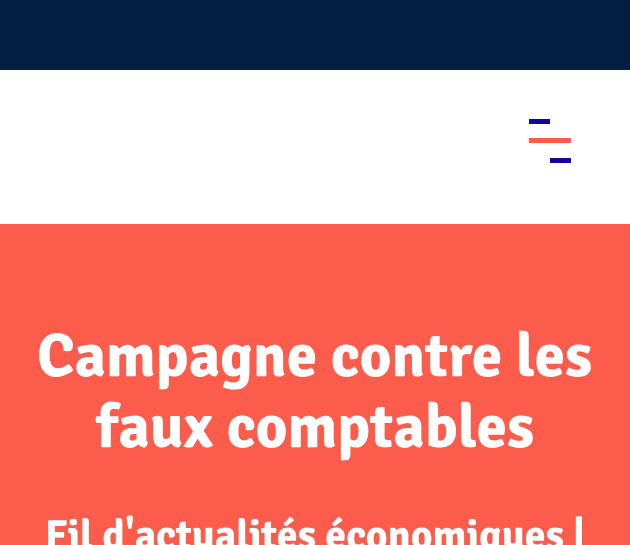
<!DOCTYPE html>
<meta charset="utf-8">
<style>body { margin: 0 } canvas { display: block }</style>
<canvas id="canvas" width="630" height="545"></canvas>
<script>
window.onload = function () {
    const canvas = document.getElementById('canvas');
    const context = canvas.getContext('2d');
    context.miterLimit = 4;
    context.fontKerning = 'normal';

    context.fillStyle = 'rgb(255, 255, 255)';
    context.fillRect(0, 0, 630, 545);
    context.fillStyle = 'rgb(4, 30, 66)';
    context.fillRect(0, 0, 630, 70);
    context.fillStyle = 'rgb(16, 6, 159)';
    context.fillRect(529, 119, 21, 5);
    context.fillStyle = 'rgb(251, 92, 75)';
    context.fillRect(529, 138, 42, 5);
    context.fillStyle = 'rgb(16, 6, 159)';
    context.fillRect(550, 158, 21, 5);
    context.fillStyle = 'rgb(251, 92, 75)';
    context.fillRect(0, 224, 630, 321);
    context.font = 'bold 61.5px Signika';
    context.fillStyle = 'rgb(255, 255, 255)';
    context.fillText('Campagne contre les', 37, 376);
    context.fillText('faux comptables', 96, 447);
    context.font = 'bold 42px Signika';
    context.fillText('Fil d\'actualités économiques |', 45, 549);
};
</script>
